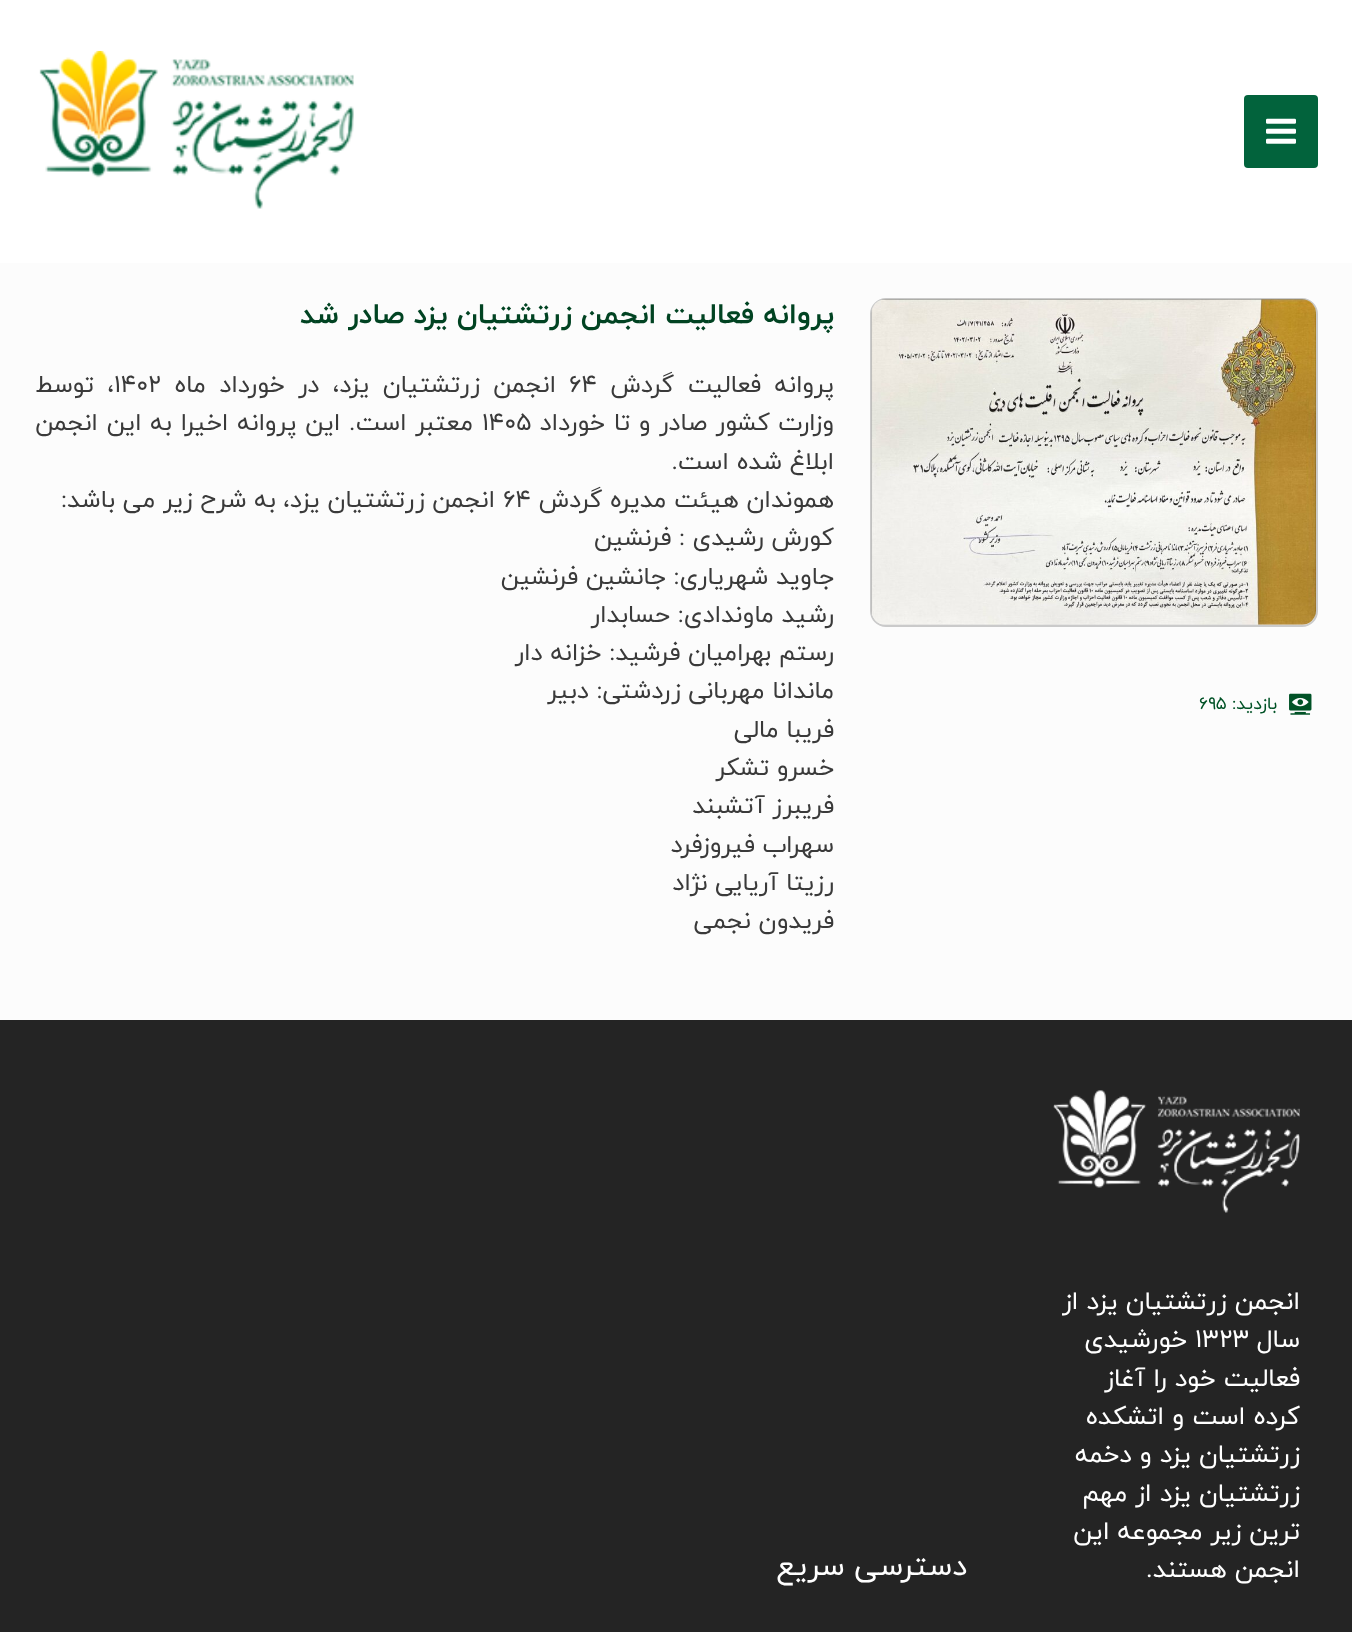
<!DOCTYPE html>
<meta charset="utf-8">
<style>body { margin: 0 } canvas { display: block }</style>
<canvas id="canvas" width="1352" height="1632"></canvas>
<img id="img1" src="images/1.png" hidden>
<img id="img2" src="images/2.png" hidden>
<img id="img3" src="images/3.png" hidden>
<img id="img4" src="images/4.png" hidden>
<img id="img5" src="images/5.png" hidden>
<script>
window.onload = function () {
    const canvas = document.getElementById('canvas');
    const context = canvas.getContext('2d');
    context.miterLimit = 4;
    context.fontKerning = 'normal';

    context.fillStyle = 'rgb(36, 36, 36)';
    context.fillRect(0, 0, 1352, 1632);
    context.fillStyle = 'rgb(255, 255, 255)';
    context.fillRect(0, 0, 1352, 263);
    context.fillStyle = 'rgb(2, 99, 60)';
    context.beginPath();
    context.roundRect(1244, 95, 74, 73, 4);
    context.fill();
    context.drawImage(document.getElementById('img1'), 1266, 118, 30, 26);
    context.drawImage(document.getElementById('img2'), 39, 50, 315, 159);
    context.fillStyle = 'rgb(252, 252, 252)';
    context.fillRect(0, 263, 1352, 757);
    context.beginPath();
    context.roundRect(871, 299, 446, 327, 15);
    context.strokeStyle = 'rgb(202, 202, 202)';
    context.lineWidth = 2;
    context.stroke();
    context.drawImage(document.getElementById('img3'), 871, 299, 445, 326);
    context.drawImage(document.getElementById('img4'), 1289, 693, 23, 22);
    context.drawImage(document.getElementById('img5'), 1053, 1090, 247, 123);
    context.direction = 'rtl';
    context.font = '17.5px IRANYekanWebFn';
    context.fillStyle = 'rgb(0, 82, 38)';
    context.fillText('بازدید:', 1277, 709);
    context.direction = 'ltr';
    context.fillText('۶۹۵', 1199, 709);
    context.direction = 'rtl';
    context.font = 'bold 28.75px IRANYekanWebFn';
    context.fillStyle = 'rgb(1, 67, 34)';
    context.fillText('پروانه فعالیت انجمن زرتشتیان یزد صادر شد', 834, 323);
    context.wordSpacing = '5.75px';
    context.font = '24.5px IRANYekanWebFn';
    context.fillStyle = 'rgb(58, 58, 58)';
    context.fillText('پروانه فعالیت گردش', 834, 392);
    context.wordSpacing = '0px';
    context.direction = 'ltr';
    context.fillText('۶۴', 569, 392);
    context.wordSpacing = '5.75px';
    context.direction = 'rtl';
    context.fillText('انجمن زرتشتیان یزد، در خورداد ماه', 556, 392);
    context.wordSpacing = '0px';
    context.direction = 'ltr';
    context.fillText('۱۴۰۲', 114, 392);
    context.wordSpacing = '5.75px';
    context.direction = 'rtl';
    context.fillText('، توسط', 114, 392);
    context.wordSpacing = '1px';
    context.fillText('وزارت کشور صادر و تا خورداد', 834, 430);
    context.wordSpacing = '0px';
    context.direction = 'ltr';
    context.fillText('۱۴۰۵', 482, 430);
    context.wordSpacing = '1px';
    context.direction = 'rtl';
    context.fillText('معتبر است. این پروانه اخیرا به این انجمن', 473, 430);
    context.wordSpacing = '0px';
    context.fillText('ابلاغ شده است.', 834, 469);
    context.fillText('هموندان هیئت مدیره گردش', 834, 507);
    context.direction = 'ltr';
    context.fillText('۶۴', 503, 507);
    context.direction = 'rtl';
    context.fillText('انجمن زرتشتیان یزد، به شرح زیر می باشد:', 495, 507);
    context.fillText('کورش رشیدی : فرنشین', 834, 545);
    context.fillText('جاوید شهریاری: جانشین فرنشین', 834, 584);
    context.fillText('رشید ماوندادی: حسابدار', 834, 622);
    context.fillText('رستم بهرامیان فرشید: خزانه دار', 834, 660);
    context.fillText('ماندانا مهربانی زردشتی: دبیر', 834, 698);
    context.fillText('فریبا مالی', 834, 737);
    context.fillText('خسرو تشکر', 834, 775);
    context.fillText('فریبرز آتشبند', 834, 813);
    context.fillText('سهراب فیروزفرد', 834, 852);
    context.fillText('رزیتا آریایی نژاد', 834, 890);
    context.fillText('فریدون نجمی', 834, 928);
    context.font = '25.5px IRANYekanWebFn';
    context.fillStyle = 'rgb(255, 255, 255)';
    context.fillText('انجمن زرتشتیان یزد از', 1300, 1309);
    context.fillText('سال', 1300, 1347);
    context.direction = 'ltr';
    context.fillText('1323', 1195, 1347);
    context.direction = 'rtl';
    context.fillText('خورشیدی', 1187, 1347);
    context.fillText('فعالیت خود را آغاز', 1300, 1386);
    context.fillText('کرده است و اتشکده', 1300, 1424);
    context.fillText('زرتشتیان یزد و دخمه', 1300, 1462);
    context.fillText('زرتشتیان یزد از مهم', 1300, 1501);
    context.fillText('ترین زیر مجموعه این', 1300, 1539);
    context.fillText('انجمن هستند.', 1300, 1577);
    context.font = '30.25px IRANYekanWebFn';
    context.fillText('دسترسی سریع', 967, 1575);
};
</script>
